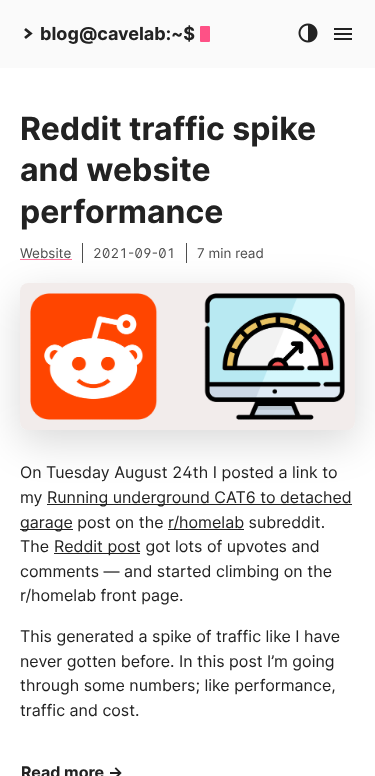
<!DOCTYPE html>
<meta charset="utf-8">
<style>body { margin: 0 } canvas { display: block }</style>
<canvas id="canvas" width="375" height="776"></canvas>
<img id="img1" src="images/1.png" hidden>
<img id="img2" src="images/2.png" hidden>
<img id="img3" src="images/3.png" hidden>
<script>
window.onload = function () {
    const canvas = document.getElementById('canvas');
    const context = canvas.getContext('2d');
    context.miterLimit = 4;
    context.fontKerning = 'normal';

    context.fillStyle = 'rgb(255, 255, 255)';
    context.fillRect(0, 0, 375, 776);
    context.fillStyle = 'rgb(250, 250, 250)';
    context.fillRect(0, 0, 375, 68);
    context.beginPath();
    context.moveTo(25, 29);
    context.lineTo(30.5, 33.5);
    context.lineTo(25, 38);
    context.strokeStyle = 'rgb(34, 34, 34)';
    context.lineWidth = 2.8;
    context.stroke();
    context.fillStyle = 'rgb(254, 81, 134)';
    context.beginPath();
    context.roundRect(200, 26, 10, 16, 1);
    context.fill();
    context.drawImage(document.getElementById('img1'), 298, 23, 20, 20);
    context.drawImage(document.getElementById('img2'), 334, 28, 18, 12);
    context.save();
    context.beginPath();
    context.moveTo(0, 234);
    context.lineTo(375, 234);
    context.lineTo(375, 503);
    context.lineTo(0, 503);
    context.closePath();
    context.moveTo(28, 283);
    context.lineTo(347, 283);
    context.bezierCurveTo(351.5, 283, 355, 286.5, 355, 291);
    context.lineTo(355, 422);
    context.bezierCurveTo(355, 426.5, 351.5, 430, 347, 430);
    context.lineTo(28, 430);
    context.bezierCurveTo(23.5, 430, 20, 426.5, 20, 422);
    context.lineTo(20, 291);
    context.bezierCurveTo(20, 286.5, 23.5, 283, 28, 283);
    context.closePath();
    context.clip('evenodd');
    context.fillStyle = 'rgba(0, 0, 0, 0.15)';
    context.filter = 'blur(20px)';
    context.beginPath();
    context.roundRect(20, 295, 335, 147, 8);
    context.fill();
    context.filter = 'none';
    context.restore();
    context.fillStyle = 'rgba(131, 65, 61, 0.1)';
    context.beginPath();
    context.roundRect(20, 283, 335, 147, 8);
    context.fill();
    context.drawImage(document.getElementById('img3'), 30, 293, 315, 127);
    context.fillStyle = 'rgb(78, 78, 78)';
    context.fillRect(82, 243, 1, 20);
    context.fillStyle = 'rgb(254, 116, 158)';
    context.fillRect(20, 259, 52, 1);
    context.fillStyle = 'rgb(78, 78, 78)';
    context.fillRect(186, 243, 1, 20);
    context.fillStyle = 'rgb(34, 34, 34)';
    context.fillRect(47, 504, 305, 1);
    context.fillRect(20, 529, 53, 1);
    context.fillRect(168, 529, 76, 1);
    context.fillRect(54, 553, 86, 1);
    context.font = 'bold 18px Inter';
    context.fillText('blog@cavelab:~$', 40, 40);
    context.font = 'bold 32px Inter';
    context.fillText('Reddit traffic spike', 20, 140);
    context.fillText('and website', 20, 181);
    context.fillText('performance', 20, 223);
    context.font = '13.5px Inter';
    context.fillStyle = 'rgb(78, 78, 78)';
    context.fillText('Website', 20, 258);
    context.font = '13.5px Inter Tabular';
    context.fillText('2021-09-01', 93, 258);
    context.font = '13.5px Inter';
    context.fillText('7 min read', 197, 258);
    context.font = '16px Inter Tabular';
    context.fillStyle = 'rgb(34, 34, 34)';
    context.fillText('On Tuesday August 24th I posted a link to', 20, 478);
    context.font = '16px Inter';
    context.fillText('my', 20, 503);
    context.fillText('Running underground CAT6 to detached', 47, 503);
    context.fillText('garage post on the', 20, 528);
    context.fillText('r/homelab subreddit.', 168, 528);
    context.fillText('The', 20, 552);
    context.fillText('Reddit post got lots of upvotes and', 54, 552);
    context.fillText('comments — and started climbing on the', 20, 577);
    context.fillText('r/homelab front page.', 20, 601);
    context.fillText('This generated a spike of traffic like I have', 20, 642);
    context.fillText('never gotten before. In this post I’m going', 20, 667);
    context.fillText('through some numbers; like performance,', 20, 691);
    context.fillText('traffic and cost.', 20, 716);
    context.font = 'bold 16px Inter';
    context.fillText('Read more →', 21, 778);
};
</script>
